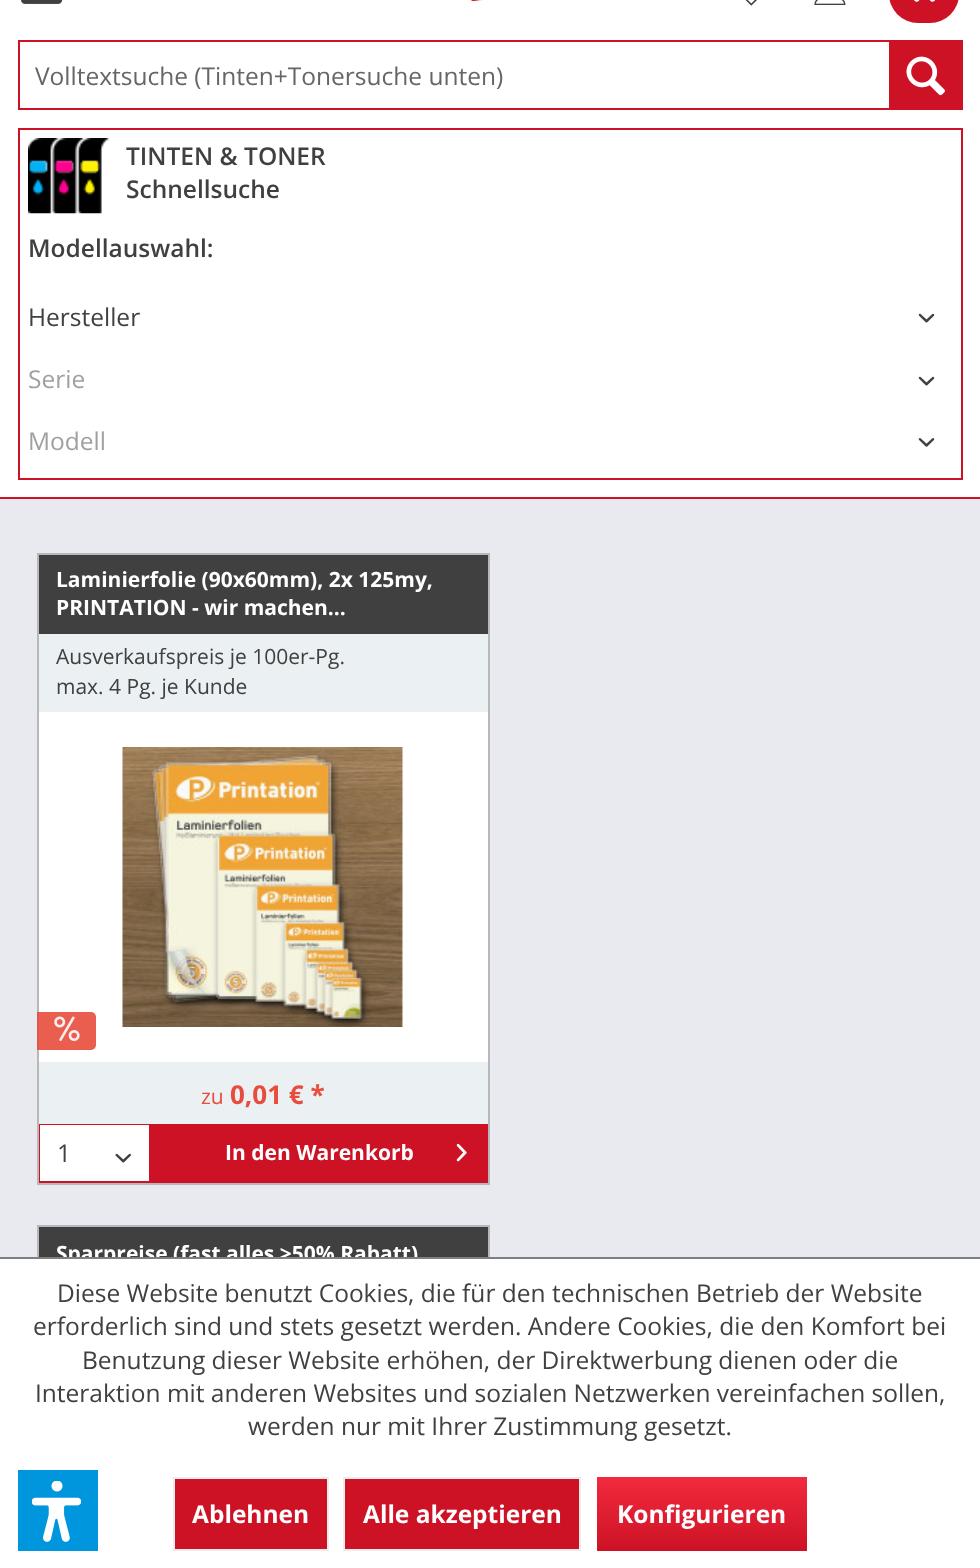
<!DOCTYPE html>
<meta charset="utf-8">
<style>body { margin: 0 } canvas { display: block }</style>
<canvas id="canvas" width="980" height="1568"></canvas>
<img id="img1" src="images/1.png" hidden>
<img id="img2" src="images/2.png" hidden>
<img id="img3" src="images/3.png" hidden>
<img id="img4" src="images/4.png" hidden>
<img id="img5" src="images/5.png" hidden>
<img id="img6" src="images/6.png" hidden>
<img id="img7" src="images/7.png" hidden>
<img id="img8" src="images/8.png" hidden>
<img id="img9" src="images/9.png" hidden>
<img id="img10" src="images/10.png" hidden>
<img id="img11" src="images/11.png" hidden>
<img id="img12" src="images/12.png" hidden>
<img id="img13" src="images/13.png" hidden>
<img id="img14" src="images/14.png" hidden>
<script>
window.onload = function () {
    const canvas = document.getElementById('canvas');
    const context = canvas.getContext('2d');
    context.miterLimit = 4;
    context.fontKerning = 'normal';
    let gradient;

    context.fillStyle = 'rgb(233, 233, 240)';
    context.fillRect(0, 0, 980, 1568);
    context.fillStyle = 'rgb(255, 255, 255)';
    context.fillRect(0, 0, 980, 497);
    context.fillStyle = 'rgb(205, 18, 37)';
    context.fillRect(0, 497, 980, 2);
    context.drawImage(document.getElementById('img1'), 471, 0, 12, 2);
    context.drawImage(document.getElementById('img2'), 21, 0, 42, 4);
    context.drawImage(document.getElementById('img3'), 745, 0, 12, 6);
    context.drawImage(document.getElementById('img4'), 814, 0, 32, 5);
    context.beginPath();
    context.roundRect(889, -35, 70, 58, 35);
    context.fill();
    context.drawImage(document.getElementById('img5'), 914, 0, 21, 2);
    context.strokeStyle = 'rgb(205, 18, 37)';
    context.lineWidth = 2;
    context.strokeRect(19, 41, 943, 68);
    context.fillRect(889, 42, 72, 66);
    context.drawImage(document.getElementById('img6'), 906, 56, 39, 40);
    context.strokeRect(19, 129, 943, 350);
    context.drawImage(document.getElementById('img7'), 28, 138, 81, 76);
    context.drawImage(document.getElementById('img8'), 918, 313, 17, 10);
    context.drawImage(document.getElementById('img8'), 918, 376, 17, 10);
    context.drawImage(document.getElementById('img9'), 918, 438, 17, 9);
    context.fillStyle = 'rgb(235, 240, 243)';
    context.fillRect(39, 634, 449, 490);
    context.strokeStyle = 'rgb(184, 184, 184)';
    context.strokeRect(38, 554, 451, 630);
    context.fillStyle = 'rgb(64, 64, 64)';
    context.fillRect(39, 555, 449, 79);
    context.fillStyle = 'rgb(255, 255, 255)';
    context.fillRect(39, 712, 449, 350);
    context.drawImage(document.getElementById('img10'), 122, 747, 281, 280);
    context.strokeStyle = 'rgb(205, 18, 37)';
    context.strokeRect(40, 1125, 110, 57);
    context.fillRect(40, 1125, 109, 56);
    context.drawImage(document.getElementById('img11'), 115, 1153, 16, 10);
    context.fillStyle = 'rgb(205, 18, 37)';
    context.fillRect(151, 1124, 337, 59);
    context.drawImage(document.getElementById('img12'), 456, 1143, 11, 19);
    context.fillStyle = 'rgba(231, 76, 60, 0.9)';
    context.beginPath();
    context.roundRect(37, 1012, 59, 38, [0, 5, 5, 0]);
    context.fill();
    context.drawImage(document.getElementById('img13'), 54, 1016, 26, 25);
    context.strokeStyle = 'rgb(184, 184, 184)';
    context.strokeRect(38, 1226, 451, 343);
    context.fillStyle = 'rgb(64, 64, 64)';
    context.fillRect(39, 1227, 449, 30);
    context.fillStyle = 'rgb(255, 255, 255)';
    context.fillRect(0, 1259, 980, 309);
    context.fillStyle = 'rgb(205, 18, 37)';
    context.beginPath();
    context.rect(174, 1478, 154, 72);
    context.fill();
    context.strokeStyle = 'rgb(237, 236, 236)';
    context.stroke();
    context.beginPath();
    context.rect(344, 1478, 236, 72);
    context.fill();
    context.stroke();
    gradient = context.createLinearGradient(702, 1477, 702, 1551);
    gradient.addColorStop(0, 'rgb(242, 42, 62)');
    gradient.addColorStop(1, 'rgb(205, 18, 37)');
    context.fillStyle = gradient;
    context.fillRect(597, 1477, 210, 74);
    context.fillStyle = 'rgb(0, 150, 222)';
    context.fillRect(18, 1470, 80, 81);
    context.drawImage(document.getElementById('img14'), 32, 1481, 49, 61);
    context.font = '24.5px Open Sans';
    context.fillStyle = 'rgb(102, 102, 102)';
    context.fillText('Volltextsuche (Tinten+Tonersuche unten)', 35, 85);
    context.font = '600 24.5px Open Sans';
    context.fillStyle = 'rgb(64, 64, 64)';
    context.fillText('TINTEN & TONER', 126, 165);
    context.fillText('Schnellsuche', 126, 198);
    context.fillText('Modellauswahl:', 28, 257);
    context.font = '24.5px Open Sans';
    context.fillText('Hersteller', 28, 326);
    context.fillStyle = 'rgb(160, 160, 160)';
    context.fillText('Serie', 28, 388);
    context.fillText('Modell', 28, 450);
    context.font = 'bold 21px Open Sans';
    context.fillStyle = 'rgb(255, 255, 255)';
    context.fillText('Laminierfolie (90x60mm), 2x 125my,', 56, 587);
    context.fillText('PRINTATION - wir machen...', 56, 615);
    context.font = '21px Open Sans';
    context.fillStyle = 'rgb(64, 64, 64)';
    context.fillText('Ausverkaufspreis je 100er-Pg.', 56, 664);
    context.fillText('max. 4 Pg. je Kunde', 56, 694);
    context.fillStyle = 'rgb(231, 76, 60)';
    context.fillText('zu', 201, 1104);
    context.font = 'bold 26px Open Sans';
    context.fillText('0,01 € *', 230, 1104);
    context.font = '24.5px Open Sans';
    context.fillStyle = 'rgb(64, 64, 64)';
    context.fillText('1', 57, 1162);
    context.font = 'bold 21px Open Sans';
    context.fillStyle = 'rgb(255, 255, 255)';
    context.fillText('In den Warenkorb', 225, 1160);
    context.fillText('Sparpreise (fast alles >50% Rabatt)', 56, 1261);
    context.fillStyle = 'rgb(127, 127, 127)';
    context.fillRect(0, 1257, 980, 2);
    context.font = '24.5px Open Sans';
    context.fillStyle = 'rgb(64, 64, 64)';
    context.fillText('Diese Website benutzt Cookies, die für den technischen Betrieb der Website', 57, 1302);
    context.fillText('erforderlich sind und stets gesetzt werden. Andere Cookies, die den Komfort bei', 33, 1335);
    context.fillText('Benutzung dieser Website erhöhen, der Direktwerbung dienen oder die', 82, 1369);
    context.fillText('Interaktion mit anderen Websites und sozialen Netzwerken vereinfachen sollen,', 35, 1402);
    context.fillText('werden nur mit Ihrer Zustimmung gesetzt.', 248, 1435);
    context.font = 'bold 24.5px Open Sans';
    context.fillStyle = 'rgb(255, 255, 255)';
    context.fillText('Ablehnen', 192, 1523);
    context.fillText('Alle akzeptieren', 363, 1523);
    context.fillText('Konfigurieren', 617, 1523);
};
</script>
